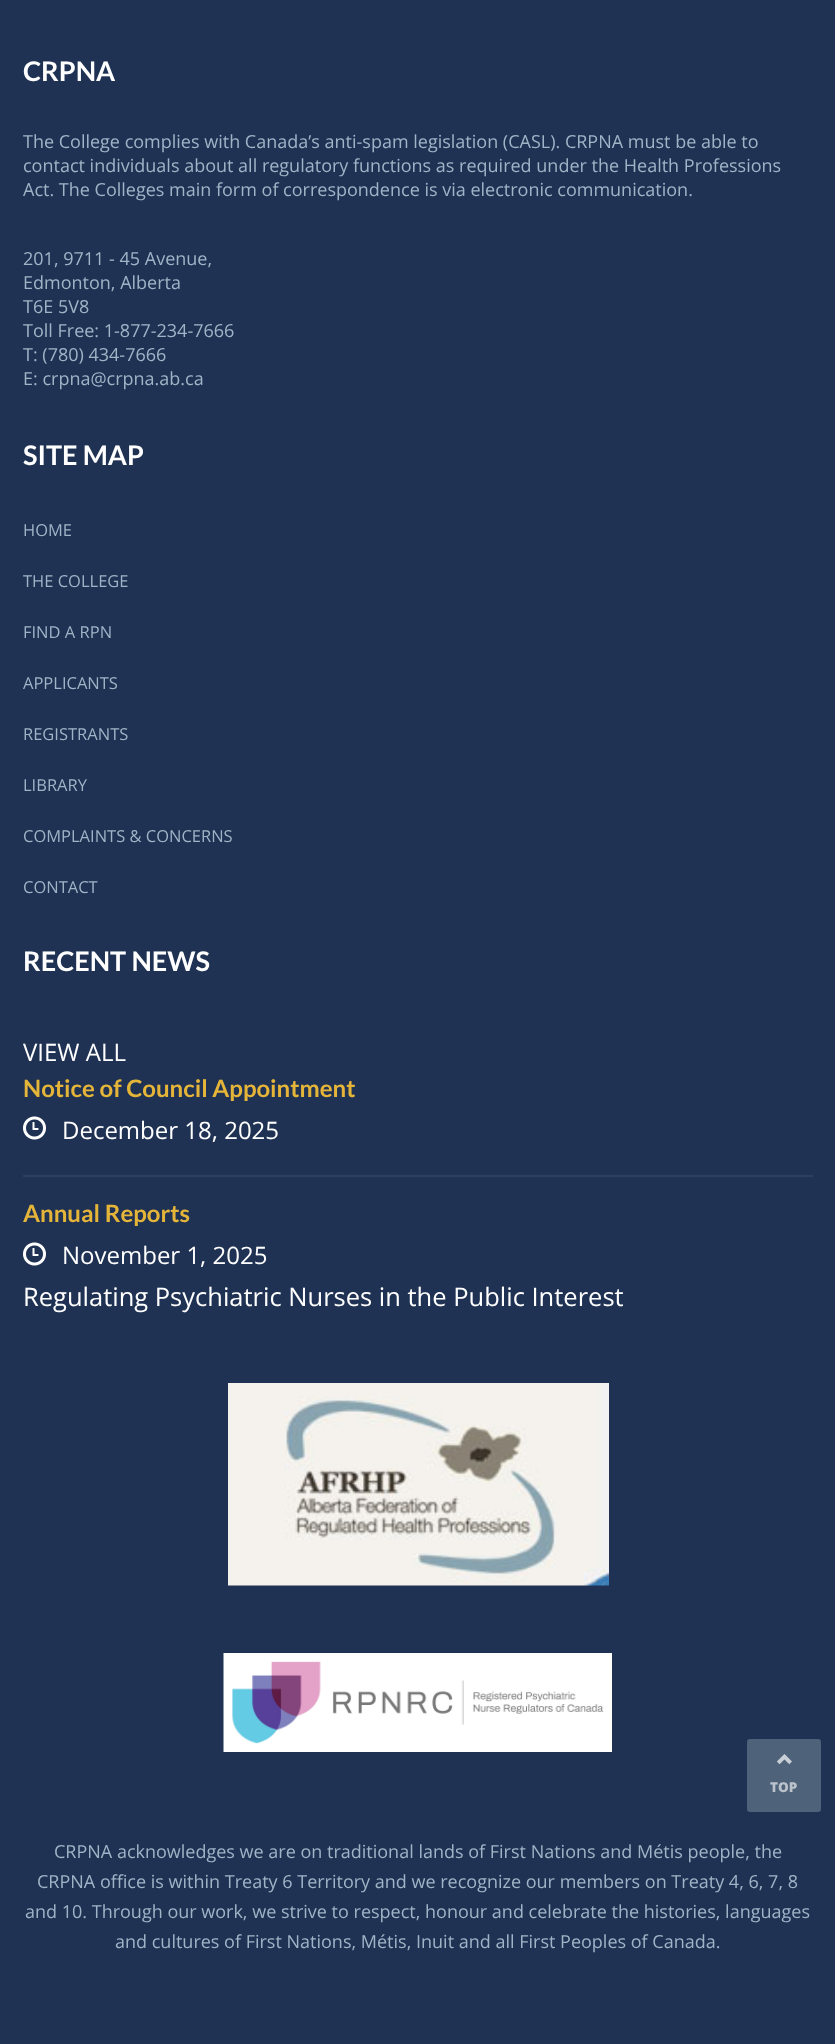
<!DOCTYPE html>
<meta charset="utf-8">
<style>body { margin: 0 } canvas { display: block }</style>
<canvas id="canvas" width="835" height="2044"></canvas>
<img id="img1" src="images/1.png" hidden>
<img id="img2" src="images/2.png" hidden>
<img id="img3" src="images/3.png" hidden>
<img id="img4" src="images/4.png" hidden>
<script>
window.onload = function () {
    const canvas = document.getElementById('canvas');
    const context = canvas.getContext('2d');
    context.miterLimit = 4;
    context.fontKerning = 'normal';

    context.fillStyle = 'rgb(31, 50, 83)';
    context.fillRect(0, 0, 835, 2044);
    context.drawImage(document.getElementById('img1'), 23, 1116, 23, 24);
    context.fillStyle = 'rgb(47, 64, 95)';
    context.fillRect(23, 1175, 790, 2);
    context.drawImage(document.getElementById('img1'), 23, 1242, 23, 24);
    context.drawImage(document.getElementById('img2'), 228, 1383, 381, 203);
    context.drawImage(document.getElementById('img3'), 223, 1653, 389, 99);
    context.fillStyle = 'rgb(78, 98, 122)';
    context.beginPath();
    context.roundRect(747, 1739, 74, 73, 3);
    context.fill();
    context.drawImage(document.getElementById('img4'), 777, 1754, 15, 11);
    context.font = 'bold 27px Lato';
    context.fillStyle = 'rgb(255, 255, 255)';
    context.fillText('CRPNA', 23, 81);
    context.font = '18px Open Sans';
    context.fillStyle = 'rgb(160, 180, 199)';
    context.fillText('The College complies with Canada’s anti-spam legislation (CASL). CRPNA must be able to', 23, 148);
    context.fillText('contact individuals about all regulatory functions as required under the Health Professions', 23, 172);
    context.fillText('Act. The Colleges main form of correspondence is via electronic communication.', 23, 196);
    context.fillText('201, 9711 - 45 Avenue,', 23, 265);
    context.fillText('Edmonton, Alberta', 23, 289);
    context.fillText('T6E 5V8', 23, 313);
    context.fillText('Toll Free: 1-877-234-7666', 23, 337);
    context.fillText('T: (780) 434-7666', 23, 361);
    context.fillText('E: crpna@crpna.ab.ca', 23, 385);
    context.font = 'bold 27px Lato';
    context.fillStyle = 'rgb(255, 255, 255)';
    context.fillText('SITE MAP', 23, 465);
    context.font = '16.5px Open Sans';
    context.fillStyle = 'rgb(160, 180, 199)';
    context.fillText('HOME', 23, 536);
    context.fillText('THE COLLEGE', 23, 587);
    context.fillText('FIND A RPN', 23, 638);
    context.fillText('APPLICANTS', 23, 689);
    context.fillText('REGISTRANTS', 23, 740);
    context.fillText('LIBRARY', 23, 791);
    context.fillText('COMPLAINTS & CONCERNS', 23, 842);
    context.fillText('CONTACT', 23, 893);
    context.font = 'bold 27px Lato';
    context.fillStyle = 'rgb(255, 255, 255)';
    context.fillText('RECENT NEWS', 23, 971);
    context.font = '24px Open Sans';
    context.fillText('VIEW ALL', 23, 1061);
    context.font = 'bold 24px Lato';
    context.fillStyle = 'rgb(229, 181, 58)';
    context.fillText('Notice of Council Appointment', 23, 1097);
    context.font = '24px Open Sans';
    context.fillStyle = 'rgb(255, 255, 255)';
    context.fillText('December 18, 2025', 62, 1139);
    context.font = 'bold 24px Lato';
    context.fillStyle = 'rgb(229, 181, 58)';
    context.fillText('Annual Reports', 23, 1222);
    context.font = '24px Open Sans';
    context.fillStyle = 'rgb(255, 255, 255)';
    context.fillText('November 1, 2025', 62, 1264);
    context.font = '25.5px Open Sans';
    context.fillText('Regulating Psychiatric Nurses in the Public Interest', 23, 1306);
    context.font = '18px Open Sans';
    context.fillStyle = 'rgb(160, 180, 199)';
    context.fillText('CRPNA acknowledges we are on traditional lands of First Nations and Métis people, the', 54, 1858);
    context.fillText('CRPNA office is within Treaty 6 Territory and we recognize our members on Treaty 4, 6, 7, 8', 37, 1888);
    context.fillText('and 10. Through our work, we strive to respect, honour and celebrate the histories, languages', 25, 1918);
    context.fillText('and cultures of First Nations, Métis, Inuit and all First Peoples of Canada.', 115, 1948);
    context.font = '800 13.5px Open Sans';
    context.fillStyle = 'rgb(188, 194, 203)';
    context.fillText('TOP', 770, 1792);
};
</script>
